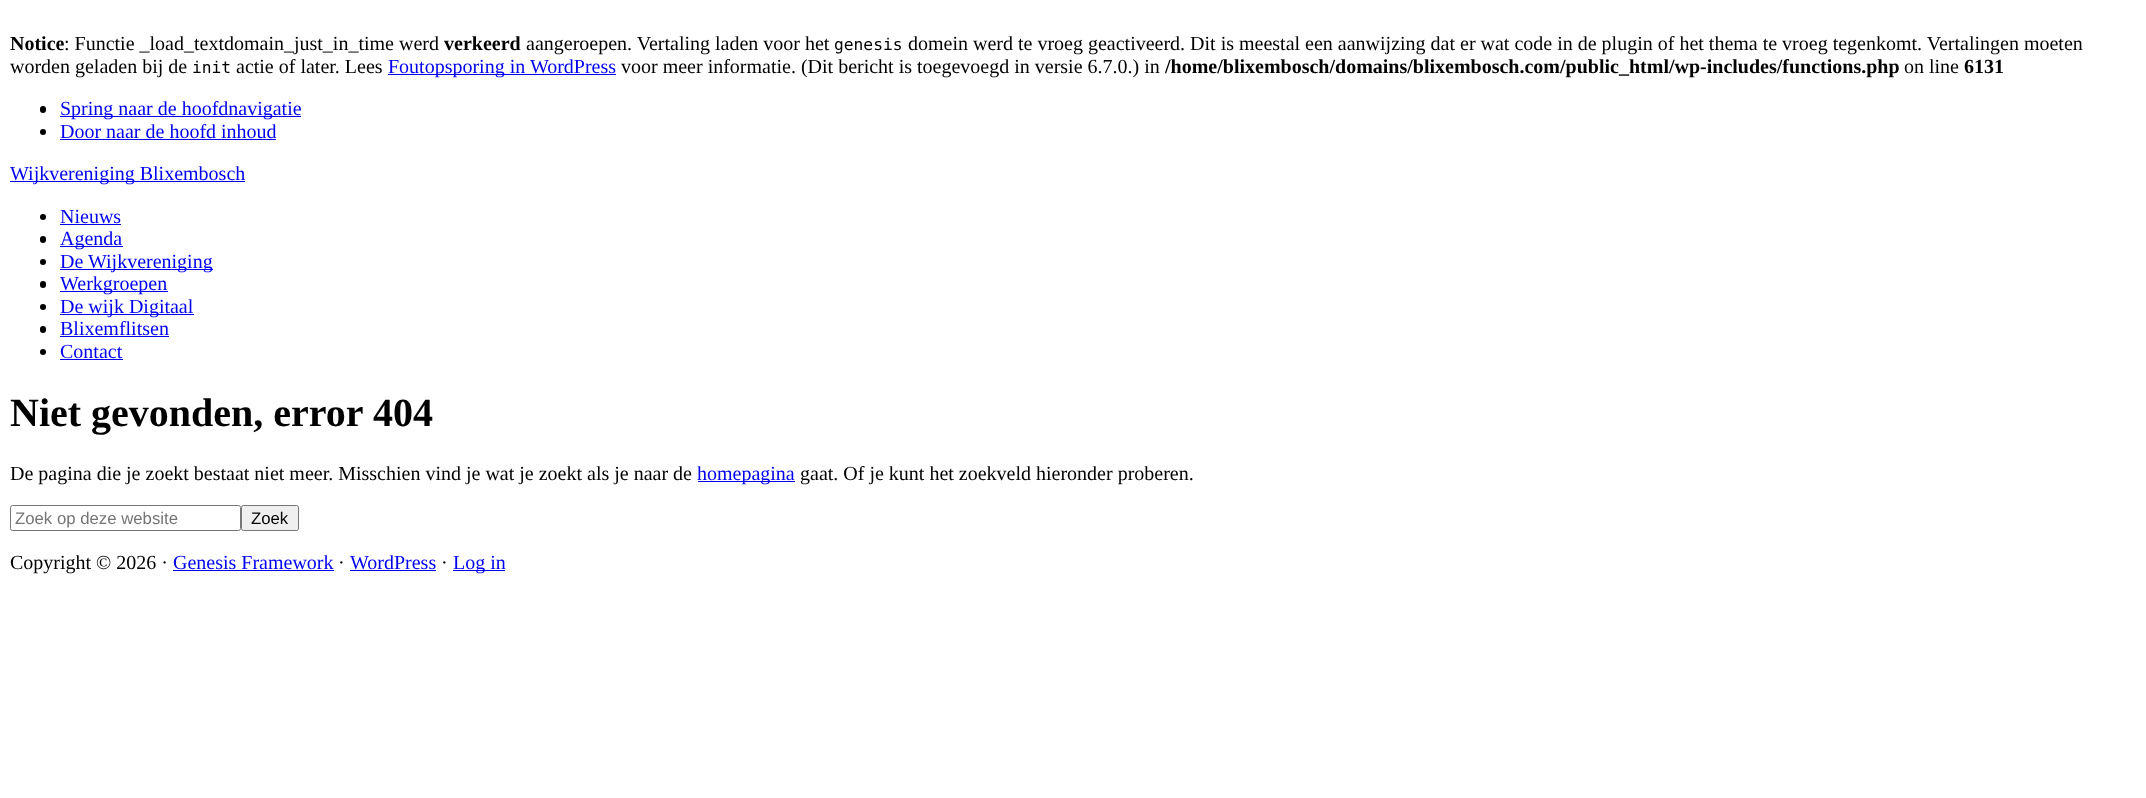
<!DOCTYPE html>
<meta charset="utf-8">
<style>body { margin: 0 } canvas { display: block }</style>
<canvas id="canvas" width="2146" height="798"></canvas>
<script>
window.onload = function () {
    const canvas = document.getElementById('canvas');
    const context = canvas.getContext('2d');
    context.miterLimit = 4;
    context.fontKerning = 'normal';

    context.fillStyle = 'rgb(255, 255, 255)';
    context.fillRect(0, 0, 2146, 798);
    context.fillStyle = 'rgb(0, 0, 238)';
    context.fillRect(388, 74, 228, 1);
    context.fillStyle = 'rgb(0, 0, 0)';
    context.beginPath();
    context.roundRect(40, 106, 6, 7, 3);
    context.fill();
    context.fillStyle = 'rgb(0, 0, 238)';
    context.fillRect(60, 116, 241, 1);
    context.fillStyle = 'rgb(0, 0, 0)';
    context.beginPath();
    context.arc(43, 132, 3, 0, 2 * Math.PI);
    context.fill();
    context.fillStyle = 'rgb(0, 0, 238)';
    context.fillRect(60, 139, 216, 1);
    context.fillRect(10, 181, 235, 1);
    context.fillStyle = 'rgb(0, 0, 0)';
    context.beginPath();
    context.arc(43, 217, 3, 0, 2 * Math.PI);
    context.fill();
    context.fillStyle = 'rgb(0, 0, 238)';
    context.fillRect(60, 224, 61, 1);
    context.fillStyle = 'rgb(0, 0, 0)';
    context.beginPath();
    context.roundRect(40, 236, 6, 7, 3);
    context.fill();
    context.fillStyle = 'rgb(0, 0, 238)';
    context.fillRect(60, 246, 63, 1);
    context.fillStyle = 'rgb(0, 0, 0)';
    context.beginPath();
    context.arc(43, 262, 3, 0, 2 * Math.PI);
    context.fill();
    context.fillStyle = 'rgb(0, 0, 238)';
    context.fillRect(60, 269, 153, 1);
    context.fillStyle = 'rgb(0, 0, 0)';
    context.beginPath();
    context.roundRect(40, 281, 6, 7, 3);
    context.fill();
    context.fillStyle = 'rgb(0, 0, 238)';
    context.fillRect(60, 291, 108, 1);
    context.fillStyle = 'rgb(0, 0, 0)';
    context.beginPath();
    context.arc(43, 307, 3, 0, 2 * Math.PI);
    context.fill();
    context.fillStyle = 'rgb(0, 0, 238)';
    context.fillRect(60, 314, 134, 1);
    context.fillStyle = 'rgb(0, 0, 0)';
    context.beginPath();
    context.roundRect(40, 326, 6, 7, 3);
    context.fill();
    context.fillStyle = 'rgb(0, 0, 238)';
    context.fillRect(60, 336, 109, 1);
    context.fillStyle = 'rgb(0, 0, 0)';
    context.beginPath();
    context.arc(43, 352, 3, 0, 2 * Math.PI);
    context.fill();
    context.fillStyle = 'rgb(0, 0, 238)';
    context.fillRect(60, 359, 63, 1);
    context.fillRect(698, 481, 97, 1);
    context.beginPath();
    context.roundRect(10.5, 505.5, 230, 25, 2);
    context.strokeStyle = 'rgb(118, 118, 118)';
    context.stroke();
    context.fillStyle = 'rgb(239, 239, 239)';
    context.beginPath();
    context.roundRect(241.5, 505.5, 57, 25, 2);
    context.fill();
    context.stroke();
    context.fillStyle = 'rgb(0, 0, 238)';
    context.fillRect(173, 570, 161, 1);
    context.fillRect(350, 570, 86, 1);
    context.fillRect(453, 570, 52, 1);
    context.font = 'bold 20px Liberation Serif';
    context.fillStyle = 'rgb(0, 0, 0)';
    context.fillText('Notice', 10, 50);
    context.font = '20px Liberation Serif';
    context.fillText(': Functie _load_textdomain_just_in_time werd', 64, 50);
    context.font = 'bold 20px Liberation Serif';
    context.fillText('verkeerd', 444, 50);
    context.font = '20px Liberation Serif';
    context.fillText('aangeroepen. Vertaling laden voor het', 526, 50);
    context.font = '16.25px DejaVu Sans Mono';
    context.fillText('genesis', 834, 50);
    context.font = '20px Liberation Serif';
    context.fillText('domein werd te vroeg geactiveerd. Dit is meestal een aanwijzing dat er wat code in de plugin of het thema te vroeg tegenkomt. Vertalingen moeten', 908, 50);
    context.fillText('worden geladen bij de', 10, 73);
    context.font = '16.25px DejaVu Sans Mono';
    context.fillText('init', 192, 73);
    context.font = '20px Liberation Serif';
    context.fillText('actie of later. Lees', 236, 73);
    context.fillStyle = 'rgb(0, 0, 238)';
    context.fillText('Foutopsporing in WordPress', 388, 73);
    context.fillStyle = 'rgb(0, 0, 0)';
    context.fillText('voor meer informatie. (Dit bericht is toegevoegd in versie 6.7.0.) in', 621, 73);
    context.font = 'bold 20px Liberation Serif';
    context.fillText('/home/blixembosch/domains/blixembosch.com/public_html/wp-includes/functions.php', 1165, 73);
    context.font = '20px Liberation Serif';
    context.fillText('on line', 1904, 73);
    context.font = 'bold 20px Liberation Serif';
    context.fillText('6131', 1964, 73);
    context.font = '20px Liberation Serif';
    context.fillStyle = 'rgb(0, 0, 238)';
    context.fillText('Spring naar de hoofdnavigatie', 60, 115);
    context.fillText('Door naar de hoofd inhoud', 60, 138);
    context.fillText('Wijkvereniging Blixembosch', 10, 180);
    context.fillText('Nieuws', 60, 223);
    context.fillText('Agenda', 60, 245);
    context.fillText('De Wijkvereniging', 60, 268);
    context.fillText('Werkgroepen', 60, 290);
    context.fillText('De wijk Digitaal', 60, 313);
    context.fillText('Blixemflitsen', 60, 335);
    context.fillText('Contact', 60, 358);
    context.font = 'bold 40px Liberation Serif';
    context.fillStyle = 'rgb(0, 0, 0)';
    context.fillText('Niet gevonden, error 404', 10, 426);
    context.font = '20px Liberation Serif';
    context.fillText('De pagina die je zoekt bestaat niet meer. Misschien vind je wat je zoekt als je naar de', 10, 480);
    context.fillStyle = 'rgb(0, 0, 238)';
    context.fillText('homepagina', 697, 480);
    context.fillStyle = 'rgb(0, 0, 0)';
    context.fillText('gaat. Of je kunt het zoekveld hieronder proberen.', 800, 480);
    context.font = '16.75px Liberation Sans';
    context.fillStyle = 'rgb(117, 117, 117)';
    context.fillText('Zoek op deze website', 15, 524);
    context.fillStyle = 'rgb(0, 0, 0)';
    context.fillText('Zoek', 251, 524);
    context.font = '20px Liberation Serif';
    context.fillText('Copyright © 2026 ·', 10, 569);
    context.fillStyle = 'rgb(0, 0, 238)';
    context.fillText('Genesis Framework', 173, 569);
    context.fillStyle = 'rgb(0, 0, 0)';
    context.fillText('·', 338, 569);
    context.fillStyle = 'rgb(0, 0, 238)';
    context.fillText('WordPress', 350, 569);
    context.fillStyle = 'rgb(0, 0, 0)';
    context.fillText('·', 441, 569);
    context.fillStyle = 'rgb(0, 0, 238)';
    context.fillText('Log in', 453, 569);
};
</script>
